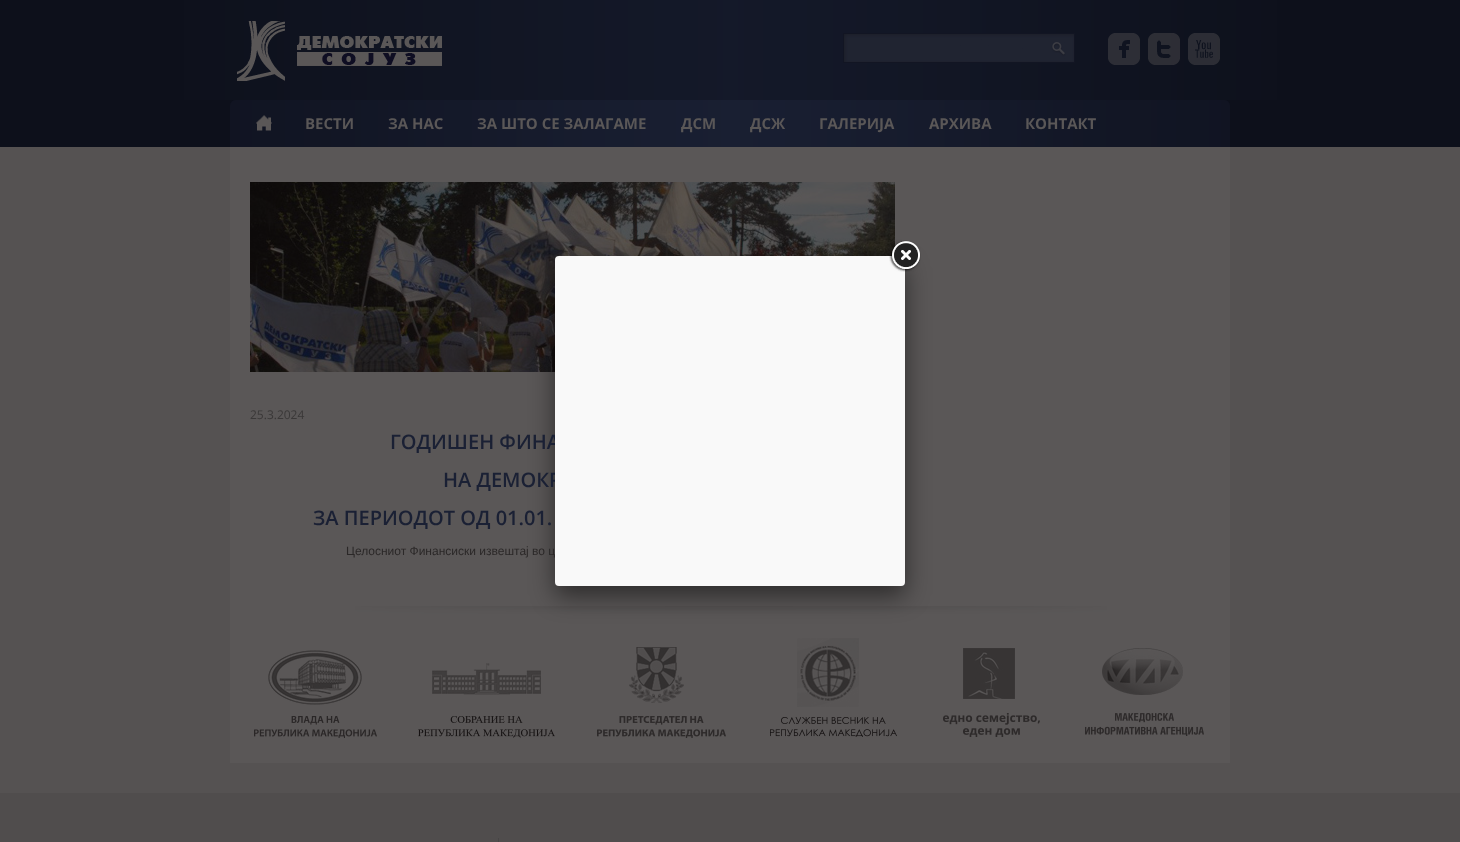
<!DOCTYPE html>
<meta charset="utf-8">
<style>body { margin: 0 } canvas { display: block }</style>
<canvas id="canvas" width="1460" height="842"></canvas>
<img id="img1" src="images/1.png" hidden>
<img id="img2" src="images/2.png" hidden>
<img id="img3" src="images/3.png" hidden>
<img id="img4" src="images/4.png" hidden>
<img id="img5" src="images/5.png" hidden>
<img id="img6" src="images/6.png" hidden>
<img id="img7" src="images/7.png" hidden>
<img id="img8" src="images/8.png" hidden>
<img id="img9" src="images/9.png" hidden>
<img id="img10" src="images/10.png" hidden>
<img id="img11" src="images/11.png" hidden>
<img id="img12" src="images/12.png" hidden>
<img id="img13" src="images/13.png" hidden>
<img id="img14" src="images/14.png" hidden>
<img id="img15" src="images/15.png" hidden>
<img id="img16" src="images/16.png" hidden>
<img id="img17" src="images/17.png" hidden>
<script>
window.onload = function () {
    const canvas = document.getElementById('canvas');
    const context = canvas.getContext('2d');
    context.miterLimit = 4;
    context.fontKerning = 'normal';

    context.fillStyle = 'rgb(85, 82, 82)';
    context.fillRect(0, 0, 1460, 842);
    context.fillStyle = 'rgb(13, 16, 27)';
    context.fillRect(0, 0, 1460, 147);
    context.drawImage(document.getElementById('img1'), 184, 0, 1093, 100);
    context.drawImage(document.getElementById('img2'), 237, 21, 205, 60);
    context.drawImage(document.getElementById('img3'), 843, 33, 232, 30);
    context.drawImage(document.getElementById('img4'), 1108, 33, 32, 32);
    context.drawImage(document.getElementById('img5'), 1148, 33, 32, 32);
    context.drawImage(document.getElementById('img6'), 1188, 33, 32, 32);
    context.drawImage(document.getElementById('img7'), 230, 100, 1000, 47);
    context.drawImage(document.getElementById('img8'), 256, 115, 16, 16);
    context.fillStyle = 'rgb(90, 87, 87)';
    context.fillRect(230, 147, 1000, 616);
    context.drawImage(document.getElementById('img9'), 250, 182, 645, 190);
    context.drawImage(document.getElementById('img10'), 355, 606, 752, 8);
    context.drawImage(document.getElementById('img11'), 254, 650, 123, 88);
    context.drawImage(document.getElementById('img12'), 418, 663, 137, 75);
    context.drawImage(document.getElementById('img13'), 597, 647, 129, 91);
    context.drawImage(document.getElementById('img14'), 770, 638, 127, 99);
    context.drawImage(document.getElementById('img15'), 943, 648, 97, 89);
    context.drawImage(document.getElementById('img16'), 1085, 648, 119, 88);
    context.fillStyle = 'rgb(80, 77, 77)';
    context.fillRect(0, 793, 1460, 49);
    context.fillStyle = 'rgb(71, 69, 69)';
    context.fillRect(498, 838, 1, 4);
    context.fillStyle = 'rgba(0, 0, 0, 0.5)';
    context.filter = 'blur(12.5px)';
    context.beginPath();
    context.roundRect(555, 266, 350, 330, 4);
    context.fill();
    context.filter = 'none';
    context.font = 'bold 15px Open Sans';
    context.fillStyle = 'rgb(90, 87, 87)';
    context.fillText('ВЕСТИ', 305, 129);
    context.fillText('ЗА НАС', 388, 129);
    context.fillText('ЗА ШТО СЕ ЗАЛАГАМЕ', 477, 129);
    context.fillText('ДСМ', 681, 129);
    context.fillText('ДСЖ', 750, 129);
    context.fillText('ГАЛЕРИЈА', 819, 129);
    context.fillText('АРХИВА', 929, 129);
    context.fillText('КОНТАКТ', 1025, 129);
    context.font = '12px Open Sans';
    context.fillStyle = 'rgb(58, 56, 56)';
    context.fillText('25.3.2024', 250, 419);
    context.font = '600 20px Open Sans';
    context.fillStyle = 'rgb(26, 32, 52)';
    context.fillText('ГОДИШЕН ФИНА', 390, 449);
    context.fillText('НА ДЕМОКР', 443, 487);
    context.fillText('ЗА ПЕРИОДОТ ОД 01.01.', 313, 525);
    context.font = '12px Liberation Sans';
    context.fillStyle = 'rgb(43, 40, 40)';
    context.fillText('Целосниот Финансиски извештај во ц', 346, 555);
    context.fillStyle = 'rgb(249, 249, 249)';
    context.beginPath();
    context.roundRect(555, 256, 350, 330, 4);
    context.fill();
    context.drawImage(document.getElementById('img17'), 889, 240, 32, 32);
};
</script>
